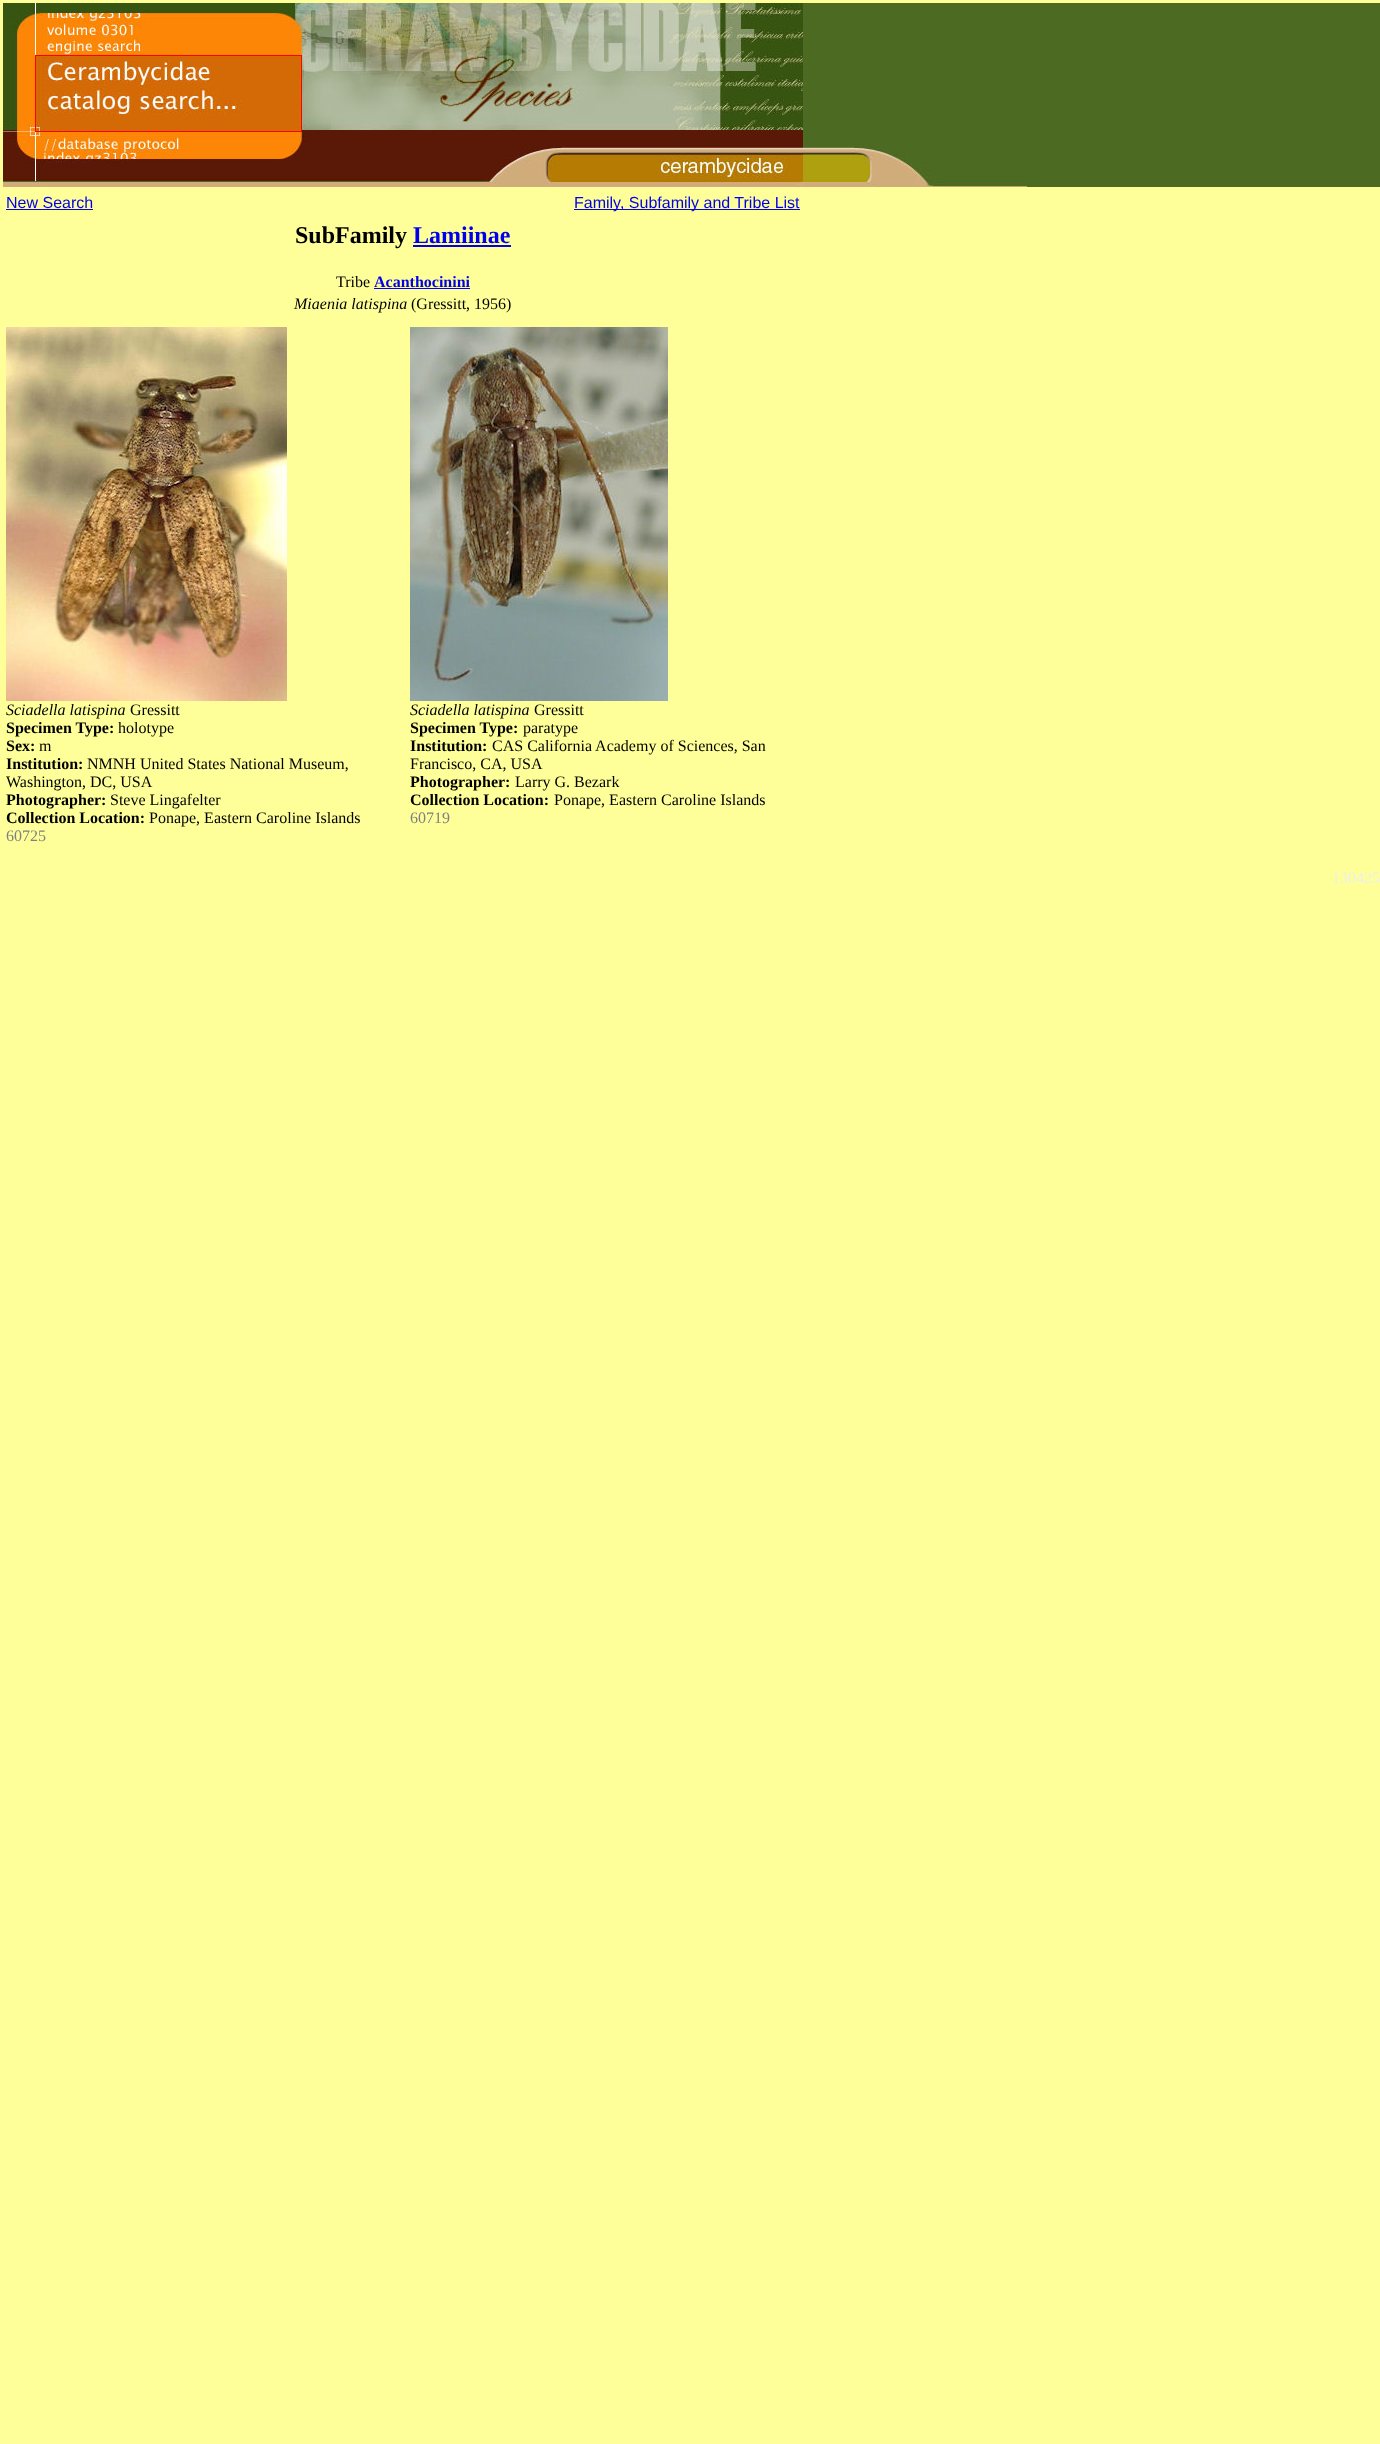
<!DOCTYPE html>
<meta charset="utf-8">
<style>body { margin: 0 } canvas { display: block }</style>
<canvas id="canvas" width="1380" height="2444"></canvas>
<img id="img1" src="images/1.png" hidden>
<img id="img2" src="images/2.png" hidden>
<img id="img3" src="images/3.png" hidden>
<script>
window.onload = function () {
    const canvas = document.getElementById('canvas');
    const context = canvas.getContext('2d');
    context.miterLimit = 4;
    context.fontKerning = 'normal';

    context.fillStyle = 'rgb(255, 255, 153)';
    context.fillRect(0, 0, 1380, 2444);
    context.drawImage(document.getElementById('img1'), 3, 3, 1377, 184);
    context.fillStyle = 'rgb(0, 0, 238)';
    context.fillRect(6, 209, 87, 1);
    context.fillRect(574, 209, 226, 1);
    context.fillRect(413, 245, 98, 2);
    context.fillRect(374, 288, 96, 1);
    context.drawImage(document.getElementById('img2'), 6, 327, 281, 374);
    context.drawImage(document.getElementById('img3'), 410, 327, 258, 374);
    context.font = '16px Liberation Sans';
    context.fillText('New Search', 6, 208);
    context.fillText('Family, Subfamily and Tribe List', 574, 208);
    context.font = 'bold 24px Liberation Serif';
    context.fillStyle = 'rgb(0, 0, 0)';
    context.fillText('SubFamily', 295, 243);
    context.fillStyle = 'rgb(0, 0, 238)';
    context.fillText('Lamiinae', 413, 243);
    context.font = '16px Liberation Serif';
    context.fillStyle = 'rgb(0, 0, 0)';
    context.fillText('Tribe', 336, 287);
    context.font = 'bold 16px Liberation Serif';
    context.fillStyle = 'rgb(0, 0, 238)';
    context.fillText('Acanthocinini', 374, 287);
    context.font = 'italic 16px Liberation Serif';
    context.fillStyle = 'rgb(0, 0, 0)';
    context.fillText('Miaenia latispina', 294, 309);
    context.font = '16px Liberation Serif';
    context.fillText('(Gressitt, 1956)', 411, 309);
    context.font = 'italic 16px Liberation Serif';
    context.fillText('Sciadella latispina', 6, 715);
    context.font = '16px Liberation Serif';
    context.fillText('Gressitt', 130, 715);
    context.font = 'bold 16px Liberation Serif';
    context.fillText('Specimen Type:', 6, 733);
    context.font = '16px Liberation Serif';
    context.fillText('holotype', 118, 733);
    context.font = 'bold 16px Liberation Serif';
    context.fillText('Sex:', 6, 751);
    context.font = '16px Liberation Serif';
    context.fillText('m', 39, 751);
    context.font = 'bold 16px Liberation Serif';
    context.fillText('Institution:', 6, 769);
    context.font = '16px Liberation Serif';
    context.fillText('NMNH United States National Museum,', 87, 769);
    context.fillText('Washington, DC, USA', 6, 787);
    context.font = 'bold 16px Liberation Serif';
    context.fillText('Photographer:', 6, 805);
    context.font = '16px Liberation Serif';
    context.fillText('Steve Lingafelter', 110, 805);
    context.font = 'bold 16px Liberation Serif';
    context.fillText('Collection Location:', 6, 823);
    context.font = '16px Liberation Serif';
    context.fillText('Ponape, Eastern Caroline Islands', 149, 823);
    context.fillStyle = 'rgb(128, 128, 128)';
    context.fillText('60725', 6, 841);
    context.font = 'italic 16px Liberation Serif';
    context.fillStyle = 'rgb(0, 0, 0)';
    context.fillText('Sciadella latispina', 410, 715);
    context.font = '16px Liberation Serif';
    context.fillText('Gressitt', 534, 715);
    context.font = 'bold 16px Liberation Serif';
    context.fillText('Specimen Type:', 410, 733);
    context.font = '16px Liberation Serif';
    context.fillText('paratype', 523, 733);
    context.font = 'bold 16px Liberation Serif';
    context.fillText('Institution:', 410, 751);
    context.font = '16px Liberation Serif';
    context.fillText('CAS California Academy of Sciences, San', 492, 751);
    context.fillText('Francisco, CA, USA', 410, 769);
    context.font = 'bold 16px Liberation Serif';
    context.fillText('Photographer:', 410, 787);
    context.font = '16px Liberation Serif';
    context.fillText('Larry G. Bezark', 515, 787);
    context.font = 'bold 16px Liberation Serif';
    context.fillText('Collection Location:', 410, 805);
    context.font = '16px Liberation Serif';
    context.fillText('Ponape, Eastern Caroline Islands', 554, 805);
    context.fillStyle = 'rgb(128, 128, 128)';
    context.fillText('60719', 410, 823);
    context.fillStyle = 'rgb(238, 238, 238)';
    context.fillText('130425', 1332, 883);
};
</script>
